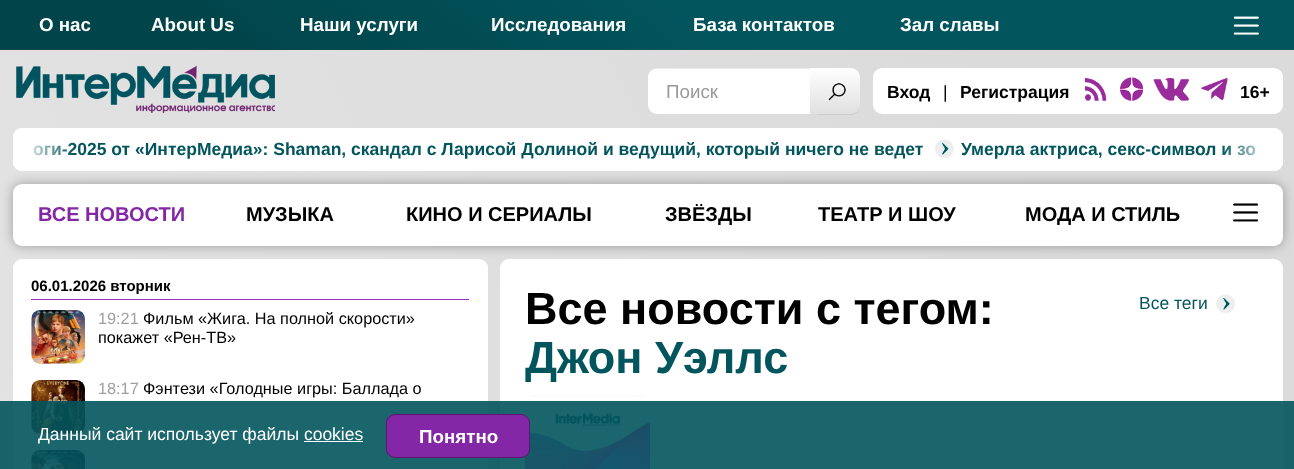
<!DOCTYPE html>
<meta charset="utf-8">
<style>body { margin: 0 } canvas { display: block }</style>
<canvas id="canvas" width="1294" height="469"></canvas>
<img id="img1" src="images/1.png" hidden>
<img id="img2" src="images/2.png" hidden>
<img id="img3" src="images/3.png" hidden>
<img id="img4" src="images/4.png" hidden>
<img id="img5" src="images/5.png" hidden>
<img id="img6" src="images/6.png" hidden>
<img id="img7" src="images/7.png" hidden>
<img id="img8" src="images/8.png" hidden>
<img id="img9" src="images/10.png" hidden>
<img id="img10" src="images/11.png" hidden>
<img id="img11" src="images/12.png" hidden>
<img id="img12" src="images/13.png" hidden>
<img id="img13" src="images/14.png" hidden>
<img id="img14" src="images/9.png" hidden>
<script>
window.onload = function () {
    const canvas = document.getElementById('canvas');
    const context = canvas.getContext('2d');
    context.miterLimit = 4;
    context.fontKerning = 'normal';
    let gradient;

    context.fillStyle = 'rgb(255, 255, 255)';
    context.fillRect(0, 0, 1294, 469);
    gradient = context.createLinearGradient(-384, 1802, 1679, 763);
    gradient.addColorStop(0.27, 'rgb(229, 229, 229)');
    gradient.addColorStop(0.87, 'rgb(219, 219, 219)');
    context.fillStyle = gradient;
    context.fillRect(0, 50, 1294, 419);
    gradient = context.createLinearGradient(901, -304, 394, 354);
    gradient.addColorStop(0.44, 'rgb(2, 85, 93)');
    gradient.addColorStop(0.84, 'rgb(1, 68, 74)');
    context.fillStyle = gradient;
    context.fillRect(0, 0, 1294, 50);
    context.drawImage(document.getElementById('img1'), 1233, 16, 26, 19);
    context.drawImage(document.getElementById('img2'), 16, 65, 259, 48);
    context.fillStyle = 'rgb(255, 255, 255)';
    context.beginPath();
    context.roundRect(648, 68, 163, 46, [9, 0, 0, 9]);
    context.fill();
    context.fillStyle = 'rgba(0, 0, 0, 0.07)';
    context.beginPath();
    context.moveTo(656, 69);
    context.lineTo(811, 69);
    context.lineTo(811, 68);
    context.lineTo(657, 68);
    context.bezierCurveTo(652, 68, 648, 72, 648, 77);
    context.lineTo(648, 78);
    context.bezierCurveTo(648, 73, 651, 69, 656, 69);
    context.closePath();
    context.fill();
    context.filter = 'blur(0.5px)';
    context.beginPath();
    context.roundRect(810, 69, 50, 46, 9);
    context.fill();
    context.filter = 'none';
    gradient = context.createLinearGradient(835, 68, 835, 114);
    gradient.addColorStop(0, 'rgb(255, 255, 255)');
    gradient.addColorStop(1, 'rgb(224, 224, 224)');
    context.fillStyle = gradient;
    context.beginPath();
    context.roundRect(810, 68, 50, 46, [0, 9, 9, 0]);
    context.fill();
    context.drawImage(document.getElementById('img3'), 828, 83, 18, 18);
    context.fillStyle = 'rgb(255, 255, 255)';
    context.beginPath();
    context.roundRect(873, 68, 410, 46, 9);
    context.fill();
    context.drawImage(document.getElementById('img4'), 1085, 78, 22, 23);
    context.drawImage(document.getElementById('img5'), 1120, 77, 23, 24);
    context.drawImage(document.getElementById('img6'), 1153, 78, 36, 23);
    context.drawImage(document.getElementById('img7'), 1201, 78, 27, 22);
    context.beginPath();
    context.roundRect(13, 128, 1270, 43, 9);
    context.fill();
    context.drawImage(document.getElementById('img8'), 935, 139, 19, 19);
    context.beginPath();
    context.roundRect(13, 259, 475, 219, 9);
    context.fill();
    context.fillStyle = 'rgb(150, 45, 188)';
    context.fillRect(31, 299, 438, 1);
    context.drawImage(document.getElementById('img9'), 31, 310, 54, 54);
    context.drawImage(document.getElementById('img10'), 31, 380, 54, 54);
    context.drawImage(document.getElementById('img11'), 31, 450, 54, 19);
    context.fillStyle = 'rgb(255, 255, 255)';
    context.beginPath();
    context.roundRect(500, 259, 783, 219, 9);
    context.fill();
    context.drawImage(document.getElementById('img12'), 1216, 294, 19, 19);
    context.drawImage(document.getElementById('img13'), 525, 395, 125, 74);
    context.fillStyle = 'rgba(2, 85, 93, 0.9)';
    context.fillRect(0, 401, 1294, 68);
    context.fillStyle = 'rgb(132, 39, 166)';
    context.beginPath();
    context.roundRect(386.5, 414.5, 143, 43, 8.5);
    context.fill();
    context.strokeStyle = 'rgb(95, 22, 112)';
    context.stroke();
    context.fillStyle = 'rgb(255, 255, 255)';
    context.fillRect(304, 441, 59, 1);
    context.font = 'bold 18.75px Liberation Sans';
    context.fillText('О нас', 39, 31);
    context.fillText('About Us', 151, 31);
    context.fillText('Наши услуги', 300, 31);
    context.fillText('Исследования', 491, 31);
    context.fillText('База контактов', 693, 31);
    context.fillText('Зал славы', 900, 31);
    context.font = '18.75px Liberation Sans';
    context.fillStyle = 'rgb(153, 153, 153)';
    context.fillText('Поиск', 666, 98);
    context.font = 'bold 17.5px Liberation Sans';
    context.fillStyle = 'rgb(0, 0, 0)';
    context.fillText('Вход', 887, 98);
    context.font = '17.5px Liberation Sans';
    context.fillText('|', 943, 98);
    context.font = 'bold 17.5px Liberation Sans';
    context.fillText('Регистрация', 960, 98);
    context.fillText('16+', 1240, 98);
    context.fillStyle = 'rgb(2, 85, 93)';
    context.fillText('оги-2025 от «ИнтерМедиа»: Shaman, скандал с Ларисой Долиной и ведущий, который ничего не ведет', 33, 155);
    gradient = context.createLinearGradient(13, 149, 100, 149);
    gradient.addColorStop(0.1, 'rgb(255, 255, 255)');
    gradient.addColorStop(0.7, 'rgba(255, 255, 255, 0)');
    context.fillStyle = gradient;
    context.beginPath();
    context.roundRect(13, 128, 87, 43, [9, 0, 0, 9]);
    context.fill();
    context.fillStyle = 'rgb(2, 85, 93)';
    context.fillText('Умерла актриса, секс-символ и зо', 961, 155);
    gradient = context.createLinearGradient(1283, 149, 1195, 149);
    gradient.addColorStop(0.1, 'rgb(255, 255, 255)');
    gradient.addColorStop(0.7, 'rgba(255, 255, 255, 0)');
    context.fillStyle = gradient;
    context.beginPath();
    context.roundRect(1195, 128, 88, 43, [0, 9, 9, 0]);
    context.fill();
    context.fillStyle = 'rgba(0, 0, 0, 0.3)';
    context.filter = 'blur(6px)';
    context.beginPath();
    context.roundRect(13, 184, 1270, 62, 9);
    context.fill();
    context.filter = 'none';
    context.fillStyle = 'rgb(255, 255, 255)';
    context.beginPath();
    context.roundRect(13, 184, 1270, 62, 9);
    context.fill();
    context.font = 'bold 20px Liberation Sans';
    context.fillStyle = 'rgb(132, 39, 166)';
    context.fillText('ВСЕ НОВОСТИ', 38, 221);
    context.fillStyle = 'rgb(0, 0, 0)';
    context.fillText('МУЗЫКА', 246, 221);
    context.fillText('КИНО И СЕРИАЛЫ', 406, 221);
    context.fillText('ЗВЁЗДЫ', 665, 221);
    context.fillText('ТЕАТР И ШОУ', 818, 221);
    context.fillText('МОДА И СТИЛЬ', 1025, 221);
    context.drawImage(document.getElementById('img14'), 1233, 203, 25, 19);
    context.font = 'bold 15px Liberation Sans';
    context.fillText('06.01.2026 вторник', 31, 291);
    context.font = '16.25px Liberation Sans';
    context.fillStyle = 'rgb(159, 159, 159)';
    context.fillText('19:21', 98, 324);
    context.fillStyle = 'rgb(0, 0, 0)';
    context.fillText('Фильм «Жига. На полной скорости»', 143, 324);
    context.fillText('покажет «Рен-ТВ»', 98, 343);
    context.fillStyle = 'rgb(159, 159, 159)';
    context.fillText('18:17', 98, 394);
    context.fillStyle = 'rgb(0, 0, 0)';
    context.fillText('Фэнтези «Голодные игры: Баллада о', 143, 394);
    context.font = 'bold 45px Liberation Sans';
    context.fillText('Все новости с тегом:', 525, 324);
    context.fillStyle = 'rgb(2, 85, 93)';
    context.fillText('Джон Уэллс', 525, 373);
    context.font = '17.5px Liberation Sans';
    context.fillText('Все теги', 1139, 309);
    context.fillStyle = 'rgb(255, 255, 255)';
    context.fillText('Данный сайт использует файлы cookies', 38, 440);
    context.font = 'bold 18.75px Liberation Sans';
    context.fillText('Понятно', 419, 443);
};
</script>
